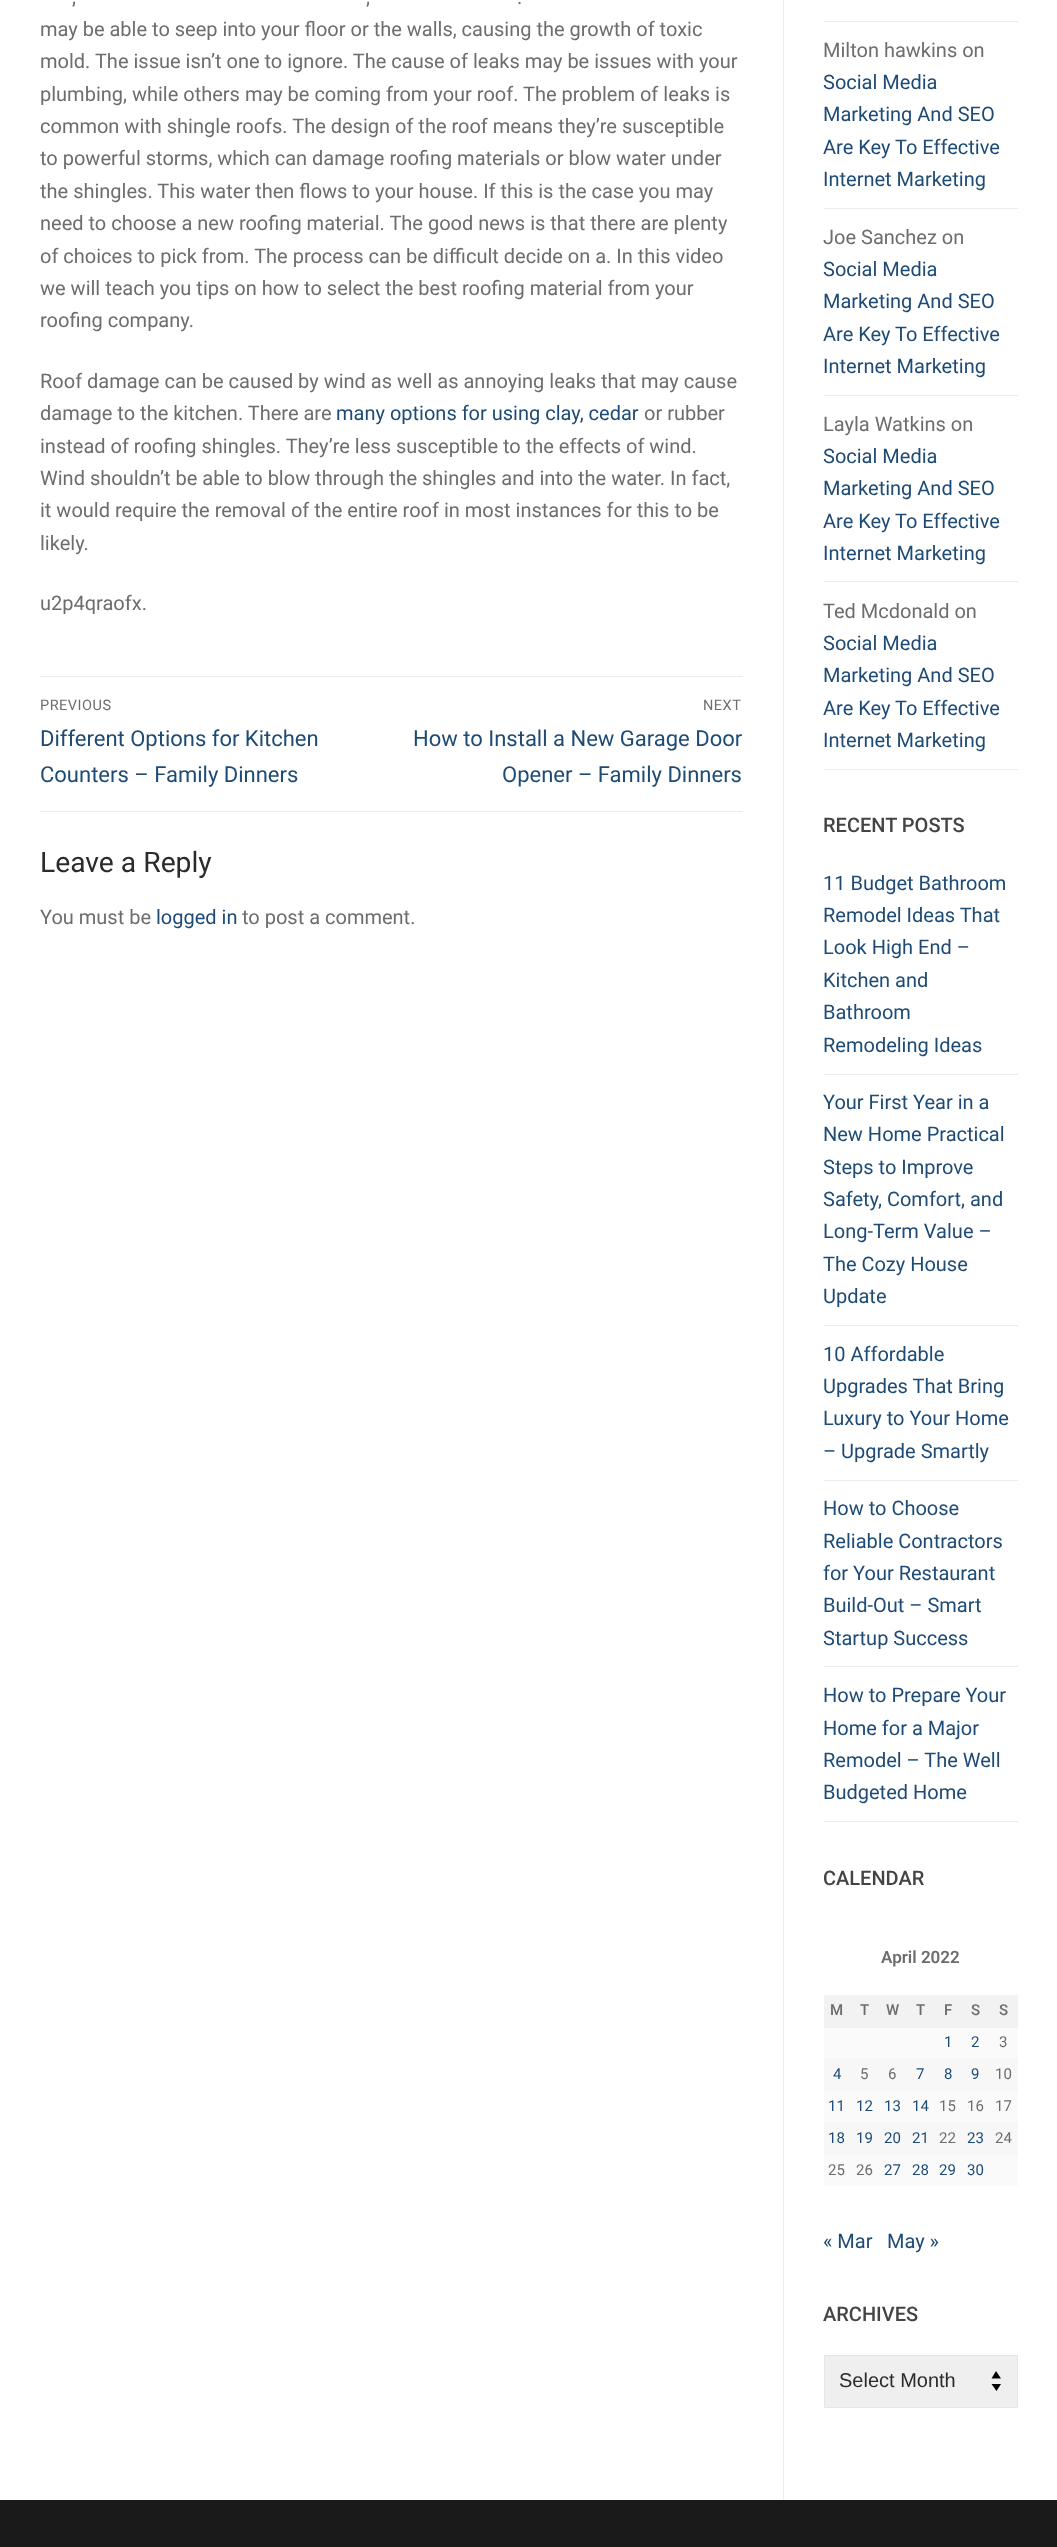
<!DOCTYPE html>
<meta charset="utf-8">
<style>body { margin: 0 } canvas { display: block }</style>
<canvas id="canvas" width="1057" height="2547"></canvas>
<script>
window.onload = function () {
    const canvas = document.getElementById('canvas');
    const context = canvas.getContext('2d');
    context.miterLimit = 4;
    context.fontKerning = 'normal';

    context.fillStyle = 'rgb(255, 255, 255)';
    context.fillRect(0, 0, 1057, 2547);
    context.fillStyle = 'rgb(234, 236, 238)';
    context.fillRect(783, 0, 1, 2500);
    context.fillRect(40, 676, 703, 1);
    context.fillRect(40, 811, 703, 1);
    context.fillRect(824, 21, 194, 1);
    context.fillRect(824, 208, 194, 1);
    context.fillRect(824, 395, 194, 1);
    context.fillRect(824, 581, 194, 1);
    context.fillRect(824, 769, 194, 1);
    context.fillRect(824, 1074, 194, 1);
    context.fillRect(824, 1325, 194, 1);
    context.fillRect(824, 1480, 194, 1);
    context.fillRect(824, 1666, 194, 1);
    context.fillRect(824, 1821, 194, 1);
    context.fillStyle = 'rgb(242, 242, 242)';
    context.fillRect(824, 1995, 194, 33);
    context.fillStyle = 'rgb(250, 250, 250)';
    context.fillRect(824, 2028, 194, 31);
    context.fillStyle = 'rgb(247, 247, 247)';
    context.fillRect(824, 2059, 194, 32);
    context.fillStyle = 'rgb(250, 250, 250)';
    context.fillRect(824, 2091, 194, 32);
    context.fillStyle = 'rgb(247, 247, 247)';
    context.fillRect(824, 2123, 194, 32);
    context.fillStyle = 'rgb(250, 250, 250)';
    context.fillRect(824, 2155, 194, 31);
    context.fillStyle = 'rgb(239, 239, 239)';
    context.beginPath();
    context.roundRect(824, 2355, 194, 53, 1);
    context.fill();
    context.fillStyle = 'rgb(0, 0, 0)';
    context.beginPath();
    context.moveTo(996, 2371);
    context.lineTo(991.5, 2378.5);
    context.lineTo(1001, 2378.5);
    context.closePath();
    context.moveTo(996.5, 2391);
    context.lineTo(1001, 2384);
    context.lineTo(991.5, 2384);
    context.closePath();
    context.fill();
    context.beginPath();
    context.roundRect(824.5, 2355.5, 193, 52, 0.5);
    context.strokeStyle = 'rgb(229, 229, 229)';
    context.stroke();
    context.fillStyle = 'rgb(26, 26, 26)';
    context.fillRect(0, 2500, 1057, 47);
    context.font = '20px Roboto';
    context.fillStyle = 'rgb(109, 109, 109)';
    context.fillText(',', 72, 4);
    context.fillText(',', 366, 4);
    context.fillText('.', 517, 4);
    context.fillText('may be able to seep into your floor or the walls, causing the growth of toxic', 40, 36);
    context.fillText('mold. The issue isn’t one to ignore. The cause of leaks may be issues with your', 40, 68);
    context.fillText('plumbing, while others may be coming from your roof. The problem of leaks is', 40, 101);
    context.fillText('common with shingle roofs. The design of the roof means they’re susceptible', 40, 133);
    context.fillText('to powerful storms, which can damage roofing materials or blow water under', 40, 165);
    context.fillText('the shingles. This water then flows to your house. If this is the case you may', 40, 198);
    context.fillText('need to choose a new roofing material. The good news is that there are plenty', 40, 230);
    context.fillText('of choices to pick from. The process can be difficult decide on a. In this video', 40, 263);
    context.fillText('we will teach you tips on how to select the best roofing material from your', 40, 295);
    context.fillText('roofing company.', 40, 327);
    context.fillText('Roof damage can be caused by wind as well as annoying leaks that may cause', 40, 388);
    context.fillText('damage to the kitchen. There are', 40, 420);
    context.fillStyle = 'rgb(30, 75, 117)';
    context.fillText('many options for using clay, cedar', 336, 420);
    context.fillStyle = 'rgb(109, 109, 109)';
    context.fillText('or rubber', 644, 420);
    context.fillText('instead of roofing shingles. They’re less susceptible to the effects of wind.', 40, 453);
    context.fillText('Wind shouldn’t be able to blow through the shingles and into the water. In fact,', 40, 485);
    context.fillText('it would require the removal of the entire roof in most instances for this to be', 40, 517);
    context.fillText('likely.', 40, 550);
    context.fillText('u2p4qraofx.', 40, 610);
    context.letterSpacing = '0.5px';
    context.font = '14.5px Roboto';
    context.fillText('PREVIOUS', 40, 710);
    context.letterSpacing = '0px';
    context.font = '22px Roboto';
    context.fillStyle = 'rgb(30, 75, 117)';
    context.fillText('Different Options for Kitchen', 40, 746);
    context.fillText('Counters – Family Dinners', 40, 782);
    context.letterSpacing = '0.5px';
    context.font = '14.5px Roboto';
    context.fillStyle = 'rgb(109, 109, 109)';
    context.fillText('NEXT', 703, 710);
    context.letterSpacing = '0px';
    context.font = '22px Roboto';
    context.fillStyle = 'rgb(30, 75, 117)';
    context.fillText('How to Install a New Garage Door', 413, 746);
    context.fillText('Opener – Family Dinners', 502, 782);
    context.font = '28.25px Roboto';
    context.fillStyle = 'rgb(43, 43, 43)';
    context.fillText('Leave a Reply', 40, 872);
    context.font = '20px Roboto';
    context.fillStyle = 'rgb(109, 109, 109)';
    context.fillText('You must be', 40, 924);
    context.fillStyle = 'rgb(30, 75, 117)';
    context.fillText('logged in', 156, 924);
    context.fillStyle = 'rgb(109, 109, 109)';
    context.fillText('to post a comment.', 242, 924);
    context.fillText('Milton hawkins on', 823, 57);
    context.fillStyle = 'rgb(30, 75, 117)';
    context.fillText('Social Media', 823, 89);
    context.fillText('Marketing And SEO', 823, 121);
    context.fillText('Are Key To Effective', 823, 154);
    context.fillText('Internet Marketing', 823, 186);
    context.fillStyle = 'rgb(109, 109, 109)';
    context.fillText('Joe Sanchez on', 823, 244);
    context.fillStyle = 'rgb(30, 75, 117)';
    context.fillText('Social Media', 823, 276);
    context.fillText('Marketing And SEO', 823, 308);
    context.fillText('Are Key To Effective', 823, 341);
    context.fillText('Internet Marketing', 823, 373);
    context.fillStyle = 'rgb(109, 109, 109)';
    context.fillText('Layla Watkins on', 823, 431);
    context.fillStyle = 'rgb(30, 75, 117)';
    context.fillText('Social Media', 823, 463);
    context.fillText('Marketing And SEO', 823, 495);
    context.fillText('Are Key To Effective', 823, 528);
    context.fillText('Internet Marketing', 823, 560);
    context.fillStyle = 'rgb(109, 109, 109)';
    context.fillText('Ted Mcdonald on', 823, 618);
    context.fillStyle = 'rgb(30, 75, 117)';
    context.fillText('Social Media', 823, 650);
    context.fillText('Marketing And SEO', 823, 682);
    context.fillText('Are Key To Effective', 823, 715);
    context.fillText('Internet Marketing', 823, 747);
    context.font = '500 20px Roboto';
    context.fillStyle = 'rgb(68, 68, 68)';
    context.fillText('RECENT POSTS', 823, 832);
    context.font = '20px Roboto';
    context.fillStyle = 'rgb(30, 75, 117)';
    context.fillText('11 Budget Bathroom', 823, 890);
    context.fillText('Remodel Ideas That', 823, 922);
    context.fillText('Look High End –', 823, 954);
    context.fillText('Kitchen and', 823, 987);
    context.fillText('Bathroom', 823, 1019);
    context.fillText('Remodeling Ideas', 823, 1052);
    context.fillText('Your First Year in a', 823, 1109);
    context.fillText('New Home Practical', 823, 1141);
    context.fillText('Steps to Improve', 823, 1174);
    context.fillText('Safety, Comfort, and', 823, 1206);
    context.fillText('Long-Term Value –', 823, 1238);
    context.fillText('The Cozy House', 823, 1271);
    context.fillText('Update', 823, 1303);
    context.fillText('10 Affordable', 823, 1361);
    context.fillText('Upgrades That Bring', 823, 1393);
    context.fillText('Luxury to Your Home', 823, 1425);
    context.fillText('– Upgrade Smartly', 823, 1458);
    context.fillText('How to Choose', 823, 1515);
    context.fillText('Reliable Contractors', 823, 1548);
    context.fillText('for Your Restaurant', 823, 1580);
    context.fillText('Build-Out – Smart', 823, 1612);
    context.fillText('Startup Success', 823, 1645);
    context.fillText('How to Prepare Your', 823, 1702);
    context.fillText('Home for a Major', 823, 1735);
    context.fillText('Remodel – The Well', 823, 1767);
    context.fillText('Budgeted Home', 823, 1799);
    context.font = '500 20px Roboto';
    context.fillStyle = 'rgb(68, 68, 68)';
    context.fillText('CALENDAR', 823, 1885);
    context.font = '600 17px Roboto';
    context.fillStyle = 'rgb(109, 109, 109)';
    context.fillText('April 2022', 881, 1963);
    context.font = '500 15px Roboto';
    context.fillText('M', 830, 2015);
    context.fillText('T', 860, 2015);
    context.fillText('W', 886, 2015);
    context.fillText('T', 916, 2015);
    context.fillText('F', 944, 2015);
    context.fillText('S', 971, 2015);
    context.fillText('S', 999, 2015);
    context.font = '15px Roboto';
    context.fillStyle = 'rgb(30, 75, 117)';
    context.fillText('1', 944, 2047);
    context.fillText('2', 971, 2047);
    context.fillStyle = 'rgb(109, 109, 109)';
    context.fillText('3', 999, 2047);
    context.fillStyle = 'rgb(30, 75, 117)';
    context.fillText('4', 833, 2079);
    context.fillStyle = 'rgb(109, 109, 109)';
    context.fillText('5', 860, 2079);
    context.fillText('6', 888, 2079);
    context.fillStyle = 'rgb(30, 75, 117)';
    context.fillText('7', 916, 2079);
    context.fillText('8', 944, 2079);
    context.fillText('9', 971, 2079);
    context.fillStyle = 'rgb(109, 109, 109)';
    context.fillText('10', 995, 2079);
    context.fillStyle = 'rgb(30, 75, 117)';
    context.fillText('11', 828, 2111);
    context.fillText('12', 856, 2111);
    context.fillText('13', 884, 2111);
    context.fillText('14', 912, 2111);
    context.fillStyle = 'rgb(109, 109, 109)';
    context.fillText('15', 939, 2111);
    context.fillText('16', 967, 2111);
    context.fillText('17', 995, 2111);
    context.fillStyle = 'rgb(30, 75, 117)';
    context.fillText('18', 828, 2143);
    context.fillText('19', 856, 2143);
    context.fillText('20', 884, 2143);
    context.fillText('21', 912, 2143);
    context.fillStyle = 'rgb(109, 109, 109)';
    context.fillText('22', 939, 2143);
    context.fillStyle = 'rgb(30, 75, 117)';
    context.fillText('23', 967, 2143);
    context.fillStyle = 'rgb(109, 109, 109)';
    context.fillText('24', 995, 2143);
    context.fillText('25', 828, 2175);
    context.fillText('26', 856, 2175);
    context.fillStyle = 'rgb(30, 75, 117)';
    context.fillText('27', 884, 2175);
    context.fillText('28', 912, 2175);
    context.fillText('29', 939, 2175);
    context.fillText('30', 967, 2175);
    context.font = '20px Roboto';
    context.fillText('« Mar', 823, 2248);
    context.fillText('May »', 887, 2248);
    context.font = '500 20px Roboto';
    context.fillStyle = 'rgb(68, 68, 68)';
    context.fillText('ARCHIVES', 823, 2321);
    context.font = '20px Liberation Sans';
    context.fillStyle = 'rgb(43, 43, 43)';
    context.fillText('Select Month', 839, 2387);
};
</script>
